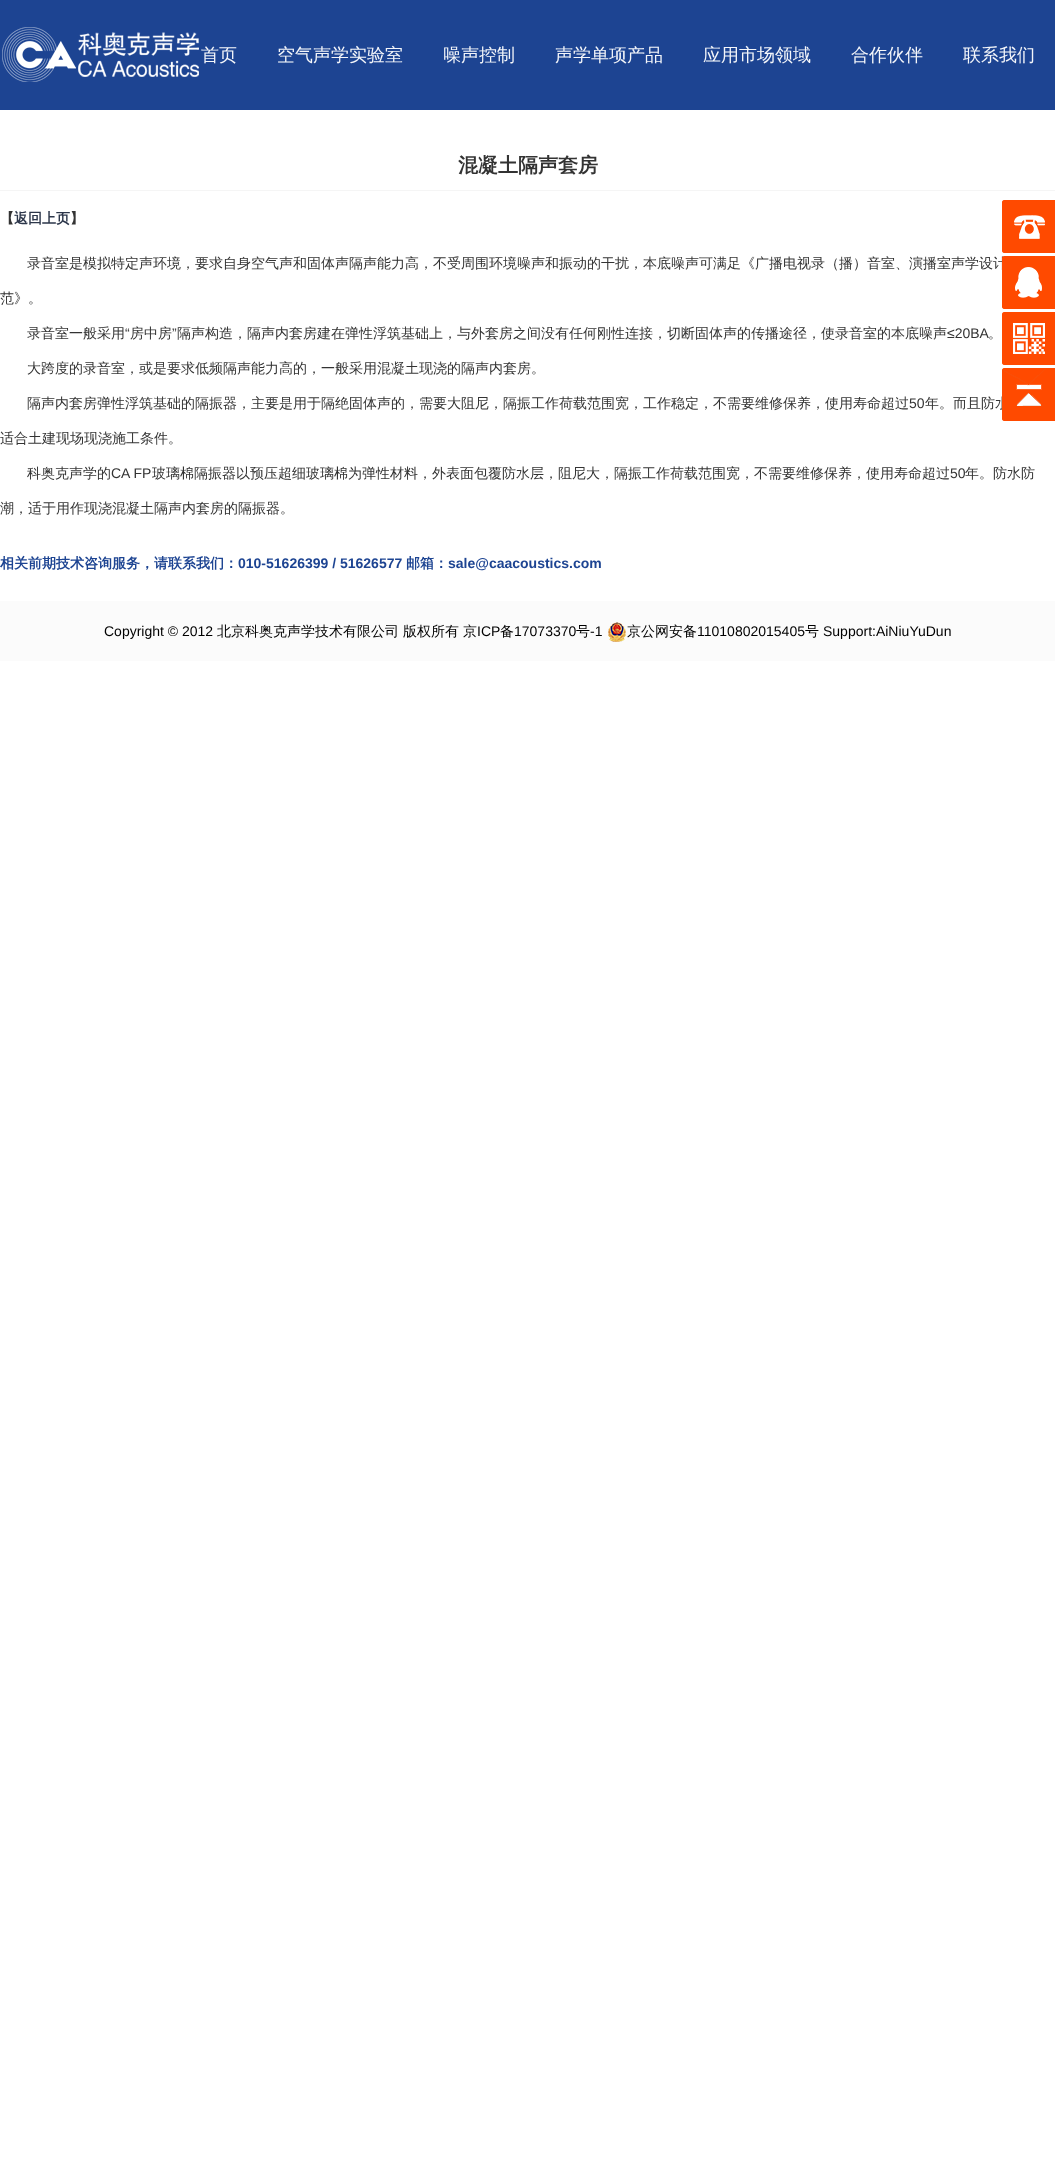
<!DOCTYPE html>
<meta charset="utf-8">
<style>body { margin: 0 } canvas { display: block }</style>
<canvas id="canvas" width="1055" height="2159"></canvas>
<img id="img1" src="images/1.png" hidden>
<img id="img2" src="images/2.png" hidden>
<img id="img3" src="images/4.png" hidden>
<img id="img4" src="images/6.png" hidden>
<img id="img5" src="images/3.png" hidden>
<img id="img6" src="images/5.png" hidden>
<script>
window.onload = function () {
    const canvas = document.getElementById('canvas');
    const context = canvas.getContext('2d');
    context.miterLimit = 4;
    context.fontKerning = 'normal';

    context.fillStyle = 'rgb(255, 255, 255)';
    context.fillRect(0, 0, 1055, 2159);
    context.fillStyle = 'rgb(29, 68, 146)';
    context.fillRect(0, 0, 1055, 110);
    context.drawImage(document.getElementById('img1'), 2, 27, 197, 55);
    context.fillStyle = 'rgb(245, 245, 245)';
    context.fillRect(0, 190, 1055, 1);
    context.fillStyle = 'rgb(255, 74, 0)';
    context.beginPath();
    context.roundRect(1002, 200, 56, 53, 3);
    context.fill();
    context.drawImage(document.getElementById('img2'), 1002, 200, 43, 53);
    context.beginPath();
    context.roundRect(1002, 312, 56, 53, 3);
    context.fill();
    context.drawImage(document.getElementById('img3'), 1002, 312, 43, 53);
    context.fillStyle = 'rgb(251, 251, 251)';
    context.fillRect(0, 601, 1055, 60);
    context.drawImage(document.getElementById('img4'), 608, 622, 18, 20);
    context.font = '500 18px WenQuanYi Zen Hei';
    context.fillStyle = 'rgb(244, 246, 250)';
    context.fillText('首页', 201, 61);
    context.fillText('空气声学实验室', 277, 61);
    context.fillText('噪声控制', 443, 61);
    context.fillText('声学单项产品', 555, 61);
    context.fillText('应用市场领域', 703, 61);
    context.fillText('合作伙伴', 851, 61);
    context.fillText('联系我们', 963, 61);
    context.font = 'bold 20px WenQuanYi Zen Hei';
    context.fillStyle = 'rgb(51, 51, 51)';
    context.fillText('混凝土隔声套房', 458, 172);
    context.font = 'bold 14px WenQuanYi Zen Hei';
    context.fillText('【', 0, 223);
    context.fillStyle = 'rgb(45, 55, 75)';
    context.fillText('返回上页', 14, 223);
    context.fillStyle = 'rgb(51, 51, 51)';
    context.fillText('】', 70, 223);
    context.font = '500 14px WenQuanYi Zen Hei';
    context.fillText('录音室是模拟特定声环境，要求自身空气声和固体声隔声能力高，不受周围环境噪声和振动的干扰，本底噪声可满足《广播电视录（播）音室、演播室声学设计', 27, 268);
    context.fillText('范》。', 0, 303);
    context.fillText('录音室一般采用', 27, 338);
    context.font = '14px Liberation Sans';
    context.fillText('“', 125, 338);
    context.font = '500 14px WenQuanYi Zen Hei';
    context.fillText('房中房', 130, 338);
    context.font = '14px Liberation Sans';
    context.fillText('”', 172, 338);
    context.font = '500 14px WenQuanYi Zen Hei';
    context.fillText('隔声构造，隔声内套房建在弹性浮筑基础上，与外套房之间没有任何刚性连接，切断固体声的传播途径，使录音室的本底噪声', 177, 338);
    context.font = '14px Liberation Sans';
    context.fillText('≤20BA', 947, 338);
    context.font = '500 14px WenQuanYi Zen Hei';
    context.fillText('。', 988, 338);
    context.fillText('大跨度的录音室，或是要求低频隔声能力高的，一般采用混凝土现浇的隔声内套房。', 27, 373);
    context.fillText('隔声内套房弹性浮筑基础的隔振器，主要是用于隔绝固体声的，需要大阻尼，隔振工作荷载范围宽，工作稳定，不需要维修保养，使用寿命超过', 27, 408);
    context.font = '14px Liberation Sans';
    context.fillText('50', 909, 408);
    context.font = '500 14px WenQuanYi Zen Hei';
    context.fillText('年。而且防水', 925, 408);
    context.fillText('适合土建现场现浇施工条件。', 0, 443);
    context.fillText('科奥克声学的', 27, 478);
    context.font = '14px Liberation Sans';
    context.fillText('CA FP', 111, 478);
    context.font = '500 14px WenQuanYi Zen Hei';
    context.fillText('玻璃棉隔振器以预压超细玻璃棉为弹性材料，外表面包覆防水层，阻尼大，隔振工作荷载范围宽，不需要维修保养，使用寿命超过', 152, 478);
    context.font = '14px Liberation Sans';
    context.fillText('50', 950, 478);
    context.font = '500 14px WenQuanYi Zen Hei';
    context.fillText('年。防水防', 965, 478);
    context.fillText('潮，适于用作现浇混凝土隔声内套房的隔振器。', 0, 513);
    context.font = 'bold 14px WenQuanYi Zen Hei';
    context.fillStyle = 'rgb(29, 68, 146)';
    context.fillText('相关前期技术咨询服务，请联系我们：', 0, 568);
    context.font = 'bold 14px Liberation Sans';
    context.fillText('010-51626399 / 51626577', 238, 568);
    context.font = 'bold 14px WenQuanYi Zen Hei';
    context.fillText('邮箱：', 406, 568);
    context.font = 'bold 14px Liberation Sans';
    context.fillText('sale@caacoustics.com', 448, 568);
    context.fillStyle = 'rgb(255, 74, 0)';
    context.beginPath();
    context.roundRect(1002, 256, 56, 53, 3);
    context.fill();
    context.drawImage(document.getElementById('img5'), 1002, 256, 40, 53);
    context.beginPath();
    context.roundRect(1002, 368, 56, 53, 3);
    context.fill();
    context.drawImage(document.getElementById('img6'), 1002, 368, 44, 53);
    context.font = '14px Liberation Sans';
    context.fillStyle = 'rgb(0, 0, 0)';
    context.fillText('Copyright © 2012', 104, 636);
    context.font = '500 14px WenQuanYi Zen Hei';
    context.fillText('北京科奥克声学技术有限公司', 217, 636);
    context.fillText('版权所有', 403, 636);
    context.fillText('京', 463, 636);
    context.font = '14px Liberation Sans';
    context.fillText('ICP', 477, 636);
    context.font = '500 14px WenQuanYi Zen Hei';
    context.fillText('备', 500, 636);
    context.font = '14px Liberation Sans';
    context.fillText('17073370', 514, 636);
    context.font = '500 14px WenQuanYi Zen Hei';
    context.fillText('号', 576, 636);
    context.font = '14px Liberation Sans';
    context.fillText('-1', 590, 636);
    context.font = '500 14px WenQuanYi Zen Hei';
    context.fillText('京公网安备', 627, 636);
    context.font = '14px Liberation Sans';
    context.fillText('11010802015405', 697, 636);
    context.font = '500 14px WenQuanYi Zen Hei';
    context.fillText('号', 805, 636);
    context.font = '14px Liberation Sans';
    context.fillText('Support:AiNiuYuDun', 823, 636);
};
</script>
